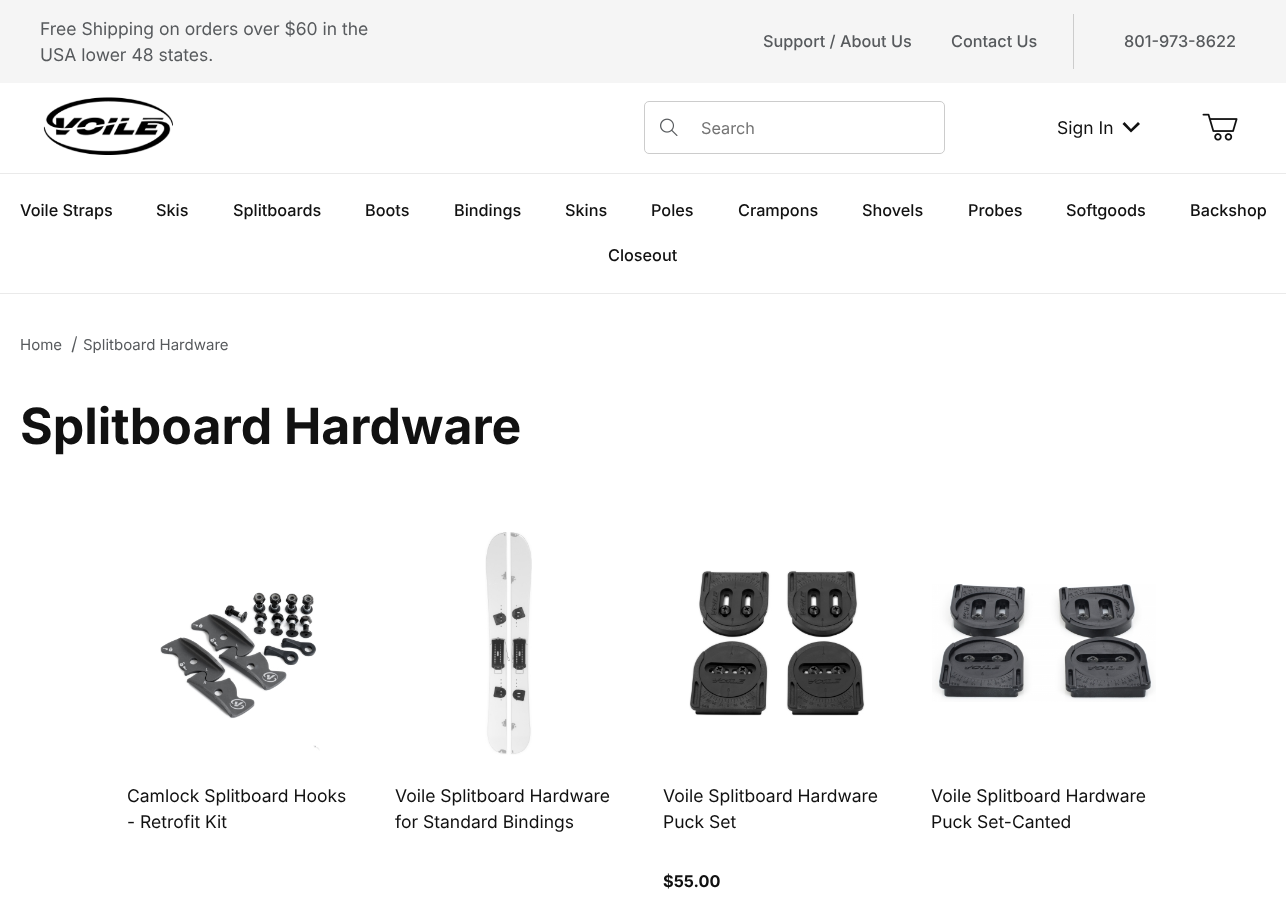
<!DOCTYPE html>
<meta charset="utf-8">
<style>body { margin: 0 } canvas { display: block }</style>
<canvas id="canvas" width="1286" height="909"></canvas>
<img id="img1" src="images/1.png" hidden>
<img id="img2" src="images/2.png" hidden>
<img id="img3" src="images/3.png" hidden>
<img id="img4" src="images/4.png" hidden>
<img id="img5" src="images/5.png" hidden>
<img id="img6" src="images/6.png" hidden>
<img id="img7" src="images/7.png" hidden>
<script>
window.onload = function () {
    const canvas = document.getElementById('canvas');
    const context = canvas.getContext('2d');
    context.miterLimit = 4;
    context.fontKerning = 'normal';

    context.fillStyle = 'rgb(255, 255, 255)';
    context.fillRect(0, 0, 1286, 909);
    context.fillStyle = 'rgb(234, 234, 234)';
    context.fillRect(0, 173, 1286, 1);
    context.fillStyle = 'rgb(245, 245, 245)';
    context.fillRect(0, 0, 1286, 83);
    context.fillStyle = 'rgb(204, 204, 204)';
    context.fillRect(1073, 14, 1, 55);
    context.drawImage(document.getElementById('img1'), 43, 97, 130, 58);
    context.beginPath();
    context.roundRect(644.5, 101.5, 300, 52, 4.5);
    context.strokeStyle = 'rgb(204, 204, 204)';
    context.stroke();
    context.drawImage(document.getElementById('img2'), 660, 118, 18, 18);
    context.fillStyle = 'rgb(17, 17, 17)';
    context.beginPath();
    context.moveTo(1124.5, 122);
    context.lineTo(1122.5, 124);
    context.lineTo(1131, 132.5);
    context.lineTo(1140, 124);
    context.lineTo(1138, 122);
    context.lineTo(1131, 129);
    context.closePath();
    context.fill();
    context.drawImage(document.getElementById('img3'), 1202, 113, 36, 28);
    context.fillStyle = 'rgb(234, 234, 234)';
    context.fillRect(0, 293, 1286, 1);
    context.fillStyle = 'rgb(87, 90, 93)';
    context.beginPath();
    context.moveTo(76, 336);
    context.lineTo(77, 336.5);
    context.lineTo(73, 352.5);
    context.lineTo(71.5, 352);
    context.closePath();
    context.fill();
    context.drawImage(document.getElementById('img4'), 160, 592, 160, 159);
    context.drawImage(document.getElementById('img5'), 485, 532, 47, 223);
    context.drawImage(document.getElementById('img6'), 689, 570, 176, 146);
    context.drawImage(document.getElementById('img7'), 932, 584, 224, 118);
    context.font = '17.5px Inter';
    context.fillText('Free Shipping on orders over $60 in the', 40, 35);
    context.fillText('USA lower 48 states.', 40, 61);
    context.font = '500 16.25px Inter';
    context.fillText('Support / About Us', 763, 47);
    context.fillText('Contact Us', 951, 47);
    context.fillText('801-973-8622', 1124, 47);
    context.font = '16.25px Inter';
    context.fillStyle = 'rgb(117, 117, 117)';
    context.fillText('Search', 701, 134);
    context.font = '17.5px Inter';
    context.fillStyle = 'rgb(17, 17, 17)';
    context.fillText('Sign In', 1057, 134);
    context.font = '500 16.25px Inter';
    context.fillText('Voile Straps', 20, 216);
    context.fillText('Skis', 156, 216);
    context.fillText('Splitboards', 233, 216);
    context.fillText('Boots', 365, 216);
    context.fillText('Bindings', 454, 216);
    context.fillText('Skins', 565, 216);
    context.fillText('Poles', 651, 216);
    context.fillText('Crampons', 738, 216);
    context.fillText('Shovels', 862, 216);
    context.fillText('Probes', 968, 216);
    context.fillText('Softgoods', 1066, 216);
    context.fillText('Backshop', 1190, 216);
    context.fillText('Closeout', 608, 261);
    context.font = '15px Inter';
    context.fillStyle = 'rgb(87, 90, 93)';
    context.fillText('Home', 20, 350);
    context.fillText('Splitboard Hardware', 83, 350);
    context.font = 'bold 50px Inter';
    context.fillStyle = 'rgb(17, 17, 17)';
    context.fillText('Splitboard Hardware', 20, 444);
    context.font = '17.5px Inter';
    context.fillText('Camlock Splitboard Hooks', 127, 802);
    context.fillText('- Retrofit Kit', 127, 828);
    context.fillText('Voile Splitboard Hardware', 395, 802);
    context.fillText('for Standard Bindings', 395, 828);
    context.fillText('Voile Splitboard Hardware', 663, 802);
    context.fillText('Puck Set', 663, 828);
    context.font = 'bold 16.25px Inter';
    context.fillText('$55.00', 663, 887);
    context.font = '17.5px Inter';
    context.fillText('Voile Splitboard Hardware', 931, 802);
    context.fillText('Puck Set-Canted', 931, 828);
};
</script>
